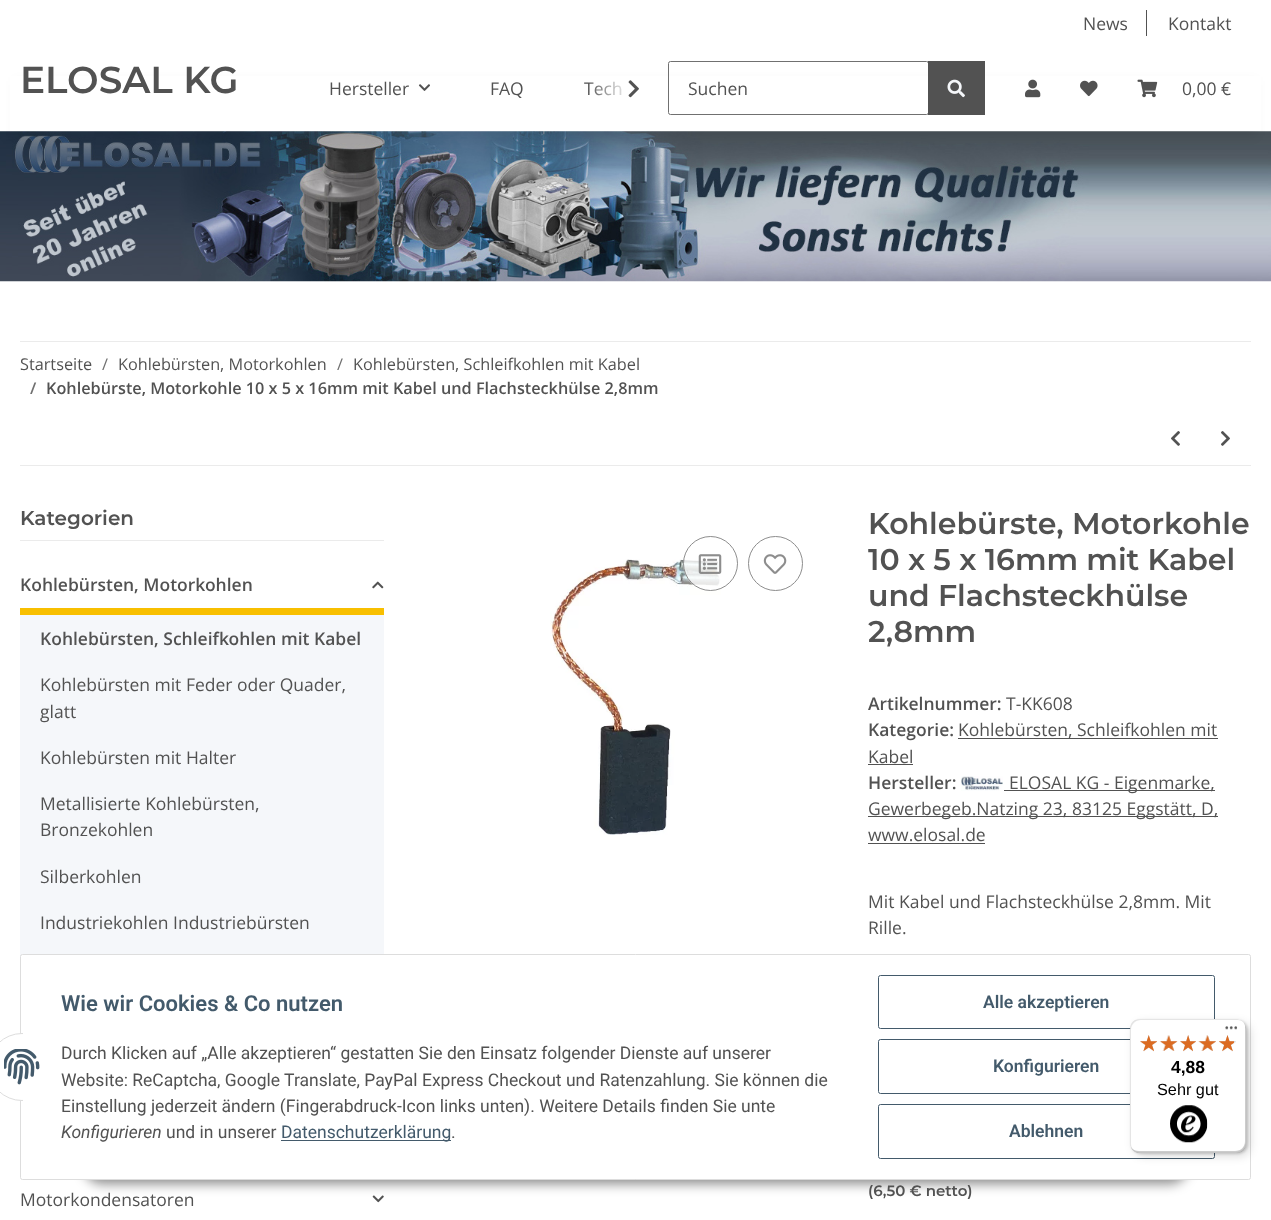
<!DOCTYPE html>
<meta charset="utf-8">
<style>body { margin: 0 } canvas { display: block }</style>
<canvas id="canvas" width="1271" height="1220"></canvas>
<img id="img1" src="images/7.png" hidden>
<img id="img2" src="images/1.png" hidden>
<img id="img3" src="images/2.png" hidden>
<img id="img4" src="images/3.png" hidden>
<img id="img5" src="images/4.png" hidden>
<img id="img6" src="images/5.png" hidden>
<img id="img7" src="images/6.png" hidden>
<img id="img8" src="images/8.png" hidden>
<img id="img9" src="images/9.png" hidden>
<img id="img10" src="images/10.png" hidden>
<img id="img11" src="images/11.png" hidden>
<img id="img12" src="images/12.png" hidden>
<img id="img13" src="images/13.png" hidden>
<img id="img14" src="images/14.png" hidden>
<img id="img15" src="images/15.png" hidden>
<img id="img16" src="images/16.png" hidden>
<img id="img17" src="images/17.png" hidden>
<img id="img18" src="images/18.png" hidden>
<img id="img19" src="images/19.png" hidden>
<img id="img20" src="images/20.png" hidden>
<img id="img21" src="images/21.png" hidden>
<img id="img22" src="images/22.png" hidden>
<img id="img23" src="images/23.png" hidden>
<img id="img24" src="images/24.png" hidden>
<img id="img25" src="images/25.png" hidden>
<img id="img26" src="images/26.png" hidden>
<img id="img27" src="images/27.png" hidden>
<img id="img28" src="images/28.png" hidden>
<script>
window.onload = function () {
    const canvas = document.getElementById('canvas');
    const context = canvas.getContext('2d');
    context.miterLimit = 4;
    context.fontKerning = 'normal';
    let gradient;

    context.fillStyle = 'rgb(255, 255, 255)';
    context.fillRect(0, 0, 1271, 1220);
    context.fillStyle = 'rgb(82, 82, 82)';
    context.fillRect(1146, 10, 1, 26);
    context.drawImage(document.getElementById('img1'), 0, 131, 1271, 151);
    context.fillStyle = 'rgba(0, 0, 0, 0.06)';
    context.filter = 'blur(5.5px)';
    context.beginPath();
    context.rect(15, 81, 1241, 55);
    context.fill();
    context.filter = 'none';
    context.fillStyle = 'rgb(255, 255, 255)';
    context.fillRect(10, 76, 1251, 55);
    context.drawImage(document.getElementById('img2'), 628, 80, 11, 18);
    context.drawImage(document.getElementById('img3'), 418, 84, 12, 7);
    context.beginPath();
    context.roundRect(668.5, 61.5, 260, 53, 2);
    context.strokeStyle = 'rgb(112, 112, 112)';
    context.stroke();
    context.fillStyle = 'rgb(82, 82, 82)';
    context.fillRect(928, 61, 57, 54);
    context.drawImage(document.getElementById('img4'), 947, 79, 18, 19);
    context.drawImage(document.getElementById('img5'), 1025, 79, 16, 19);
    context.drawImage(document.getElementById('img6'), 1080, 80, 18, 17);
    context.drawImage(document.getElementById('img7'), 1137, 79, 21, 19);
    context.fillStyle = 'rgb(235, 235, 235)';
    context.fillRect(20, 341, 1231, 1);
    context.fillRect(20, 465, 1231, 1);
    context.drawImage(document.getElementById('img8'), 1171, 431, 9, 15);
    context.drawImage(document.getElementById('img9'), 1221, 431, 9, 15);
    context.fillRect(20, 540, 364, 1);
    context.fillStyle = 'rgb(248, 191, 0)';
    context.fillRect(20, 608, 364, 7);
    context.drawImage(document.getElementById('img10'), 372, 581, 12, 8);
    context.fillStyle = 'rgb(245, 247, 250)';
    context.fillRect(20, 615, 364, 342);
    context.drawImage(document.getElementById('img11'), 372, 1195, 12, 8);
    context.drawImage(document.getElementById('img12'), 550, 559, 171, 276);
    context.fillStyle = 'rgba(255, 255, 255, 0.8)';
    context.beginPath();
    context.arc(710.5, 563.5, 27.5, 0, 2 * Math.PI);
    context.fill();
    context.beginPath();
    context.arc(710.5, 563.5, 27, 0, 2 * Math.PI);
    context.strokeStyle = 'rgba(112, 112, 112, 0.8)';
    context.stroke();
    context.drawImage(document.getElementById('img13'), 698, 554, 24, 20);
    context.beginPath();
    context.arc(775.5, 563.5, 27, 0, 2 * Math.PI);
    context.strokeStyle = 'rgb(141, 141, 141)';
    context.stroke();
    context.drawImage(document.getElementById('img14'), 763, 554, 24, 20);
    context.fillStyle = 'rgb(82, 82, 82)';
    context.fillRect(958, 738, 260, 1);
    context.fillRect(868, 764, 45, 1);
    context.drawImage(document.getElementById('img15'), 961, 776, 42, 15);
    context.fillRect(1004, 790, 211, 1);
    context.fillRect(868, 816, 350, 1);
    context.fillRect(868, 843, 117, 1);
    context.fillStyle = 'rgba(0, 0, 0, 0.45)';
    context.filter = 'blur(6px)';
    context.beginPath();
    context.roundRect(83, 1144, 1106, 40, 20);
    context.fill();
    context.filter = 'none';
    context.fillStyle = 'rgb(255, 255, 255)';
    context.beginPath();
    context.roundRect(20.5, 954.5, 1230, 225, 2);
    context.fill();
    context.strokeStyle = 'rgb(221, 221, 221)';
    context.stroke();
    context.beginPath();
    context.arc(22, 1067, 33.5, 0, 2 * Math.PI);
    context.fill();
    context.stroke();
    context.fillRect(23, 1033, 33, 68);
    context.drawImage(document.getElementById('img16'), 4, 1049, 36, 36);
    context.fillStyle = 'rgb(67, 90, 107)';
    context.fillRect(281, 1140, 170, 1);
    context.beginPath();
    context.roundRect(878.5, 975.5, 336, 53, 2);
    context.strokeStyle = 'rgb(67, 90, 107)';
    context.stroke();
    context.beginPath();
    context.roundRect(878.5, 1039.5, 336, 54, 2);
    context.stroke();
    context.beginPath();
    context.roundRect(878.5, 1104.5, 336, 54, 2);
    context.stroke();
    context.fillStyle = 'rgba(0, 0, 0, 0.15)';
    context.filter = 'blur(5px)';
    context.beginPath();
    context.roundRect(1134, 1023, 116, 133, 10);
    context.fill();
    context.filter = 'none';
    context.filter = 'blur(1px)';
    context.beginPath();
    context.roundRect(1131, 1020, 117, 134, 10);
    context.fill();
    context.filter = 'none';
    context.fillStyle = 'rgb(255, 255, 255)';
    context.beginPath();
    context.roundRect(1130, 1019, 116, 134, 10);
    context.fill();
    context.fillStyle = 'rgba(0, 0, 0, 0.1)';
    context.beginPath();
    context.moveTo(1141, 1020);
    context.lineTo(1238, 1020);
    context.lineTo(1242, 1021);
    context.bezierCurveTo(1240, 1020, 1238, 1019, 1236, 1019);
    context.lineTo(1140, 1019);
    context.bezierCurveTo(1134, 1019, 1130, 1023, 1130, 1029);
    context.lineTo(1130, 1143);
    context.bezierCurveTo(1130, 1147, 1132, 1150, 1135, 1152);
    context.bezierCurveTo(1133, 1150, 1131, 1147, 1131, 1144);
    context.lineTo(1131, 1030);
    context.bezierCurveTo(1131, 1024, 1136, 1020, 1141, 1020);
    context.closePath();
    context.fill();
    context.fillStyle = 'rgba(0, 0, 0, 0.2)';
    context.beginPath();
    context.moveTo(1131, 1147);
    context.bezierCurveTo(1133, 1151, 1136, 1153, 1140, 1153);
    context.lineTo(1236, 1153);
    context.bezierCurveTo(1242, 1153, 1246, 1149, 1246, 1143);
    context.lineTo(1246, 1029);
    context.bezierCurveTo(1246, 1027, 1245, 1024, 1244, 1023);
    context.bezierCurveTo(1245, 1024, 1245, 1026, 1245, 1028);
    context.lineTo(1245, 1141);
    context.bezierCurveTo(1245, 1147, 1241, 1151, 1235, 1151);
    context.lineTo(1139, 1151);
    context.bezierCurveTo(1136, 1151, 1133, 1150, 1131, 1147);
    context.closePath();
    context.fill();
    context.drawImage(document.getElementById('img17'), 1225, 1026, 13, 4);
    context.fillStyle = 'rgba(50, 50, 50, 0.2)';
    context.beginPath();
    context.moveTo(1131, 1148);
    context.bezierCurveTo(1133, 1151, 1136, 1153, 1140, 1153);
    context.lineTo(1236, 1153);
    context.bezierCurveTo(1242, 1153, 1246, 1149, 1246, 1143);
    context.lineTo(1246, 1142);
    context.bezierCurveTo(1246, 1147, 1241, 1152, 1236, 1152);
    context.lineTo(1139, 1152);
    context.bezierCurveTo(1136, 1152, 1133, 1150, 1131, 1148);
    context.closePath();
    context.fill();
    context.fillStyle = 'rgba(255, 255, 255, 0.3)';
    context.beginPath();
    context.moveTo(1131, 1148);
    context.bezierCurveTo(1133, 1151, 1136, 1153, 1140, 1153);
    context.lineTo(1236, 1153);
    context.bezierCurveTo(1242, 1153, 1246, 1149, 1246, 1143);
    context.lineTo(1246, 1142);
    context.bezierCurveTo(1246, 1147, 1241, 1152, 1236, 1152);
    context.lineTo(1139, 1152);
    context.bezierCurveTo(1136, 1152, 1133, 1150, 1131, 1148);
    context.closePath();
    context.fill();
    context.drawImage(document.getElementById('img18'), 1140, 1035, 17, 17);
    context.drawImage(document.getElementById('img19'), 1160, 1035, 17, 16);
    context.drawImage(document.getElementById('img20'), 1180, 1035, 16, 17);
    context.drawImage(document.getElementById('img21'), 1198, 1035, 18, 16);
    context.drawImage(document.getElementById('img22'), 1219, 1035, 17, 17);
    context.drawImage(document.getElementById('img23'), 1140, 1035, 17, 16);
    context.drawImage(document.getElementById('img24'), 1159, 1035, 19, 16);
    context.drawImage(document.getElementById('img25'), 1180, 1035, 16, 16);
    context.drawImage(document.getElementById('img26'), 1198, 1035, 18, 16);
    context.drawImage(document.getElementById('img27'), 1219, 1035, 15, 16);
    context.drawImage(document.getElementById('img28'), 1170, 1105, 38, 38);
    context.font = '17.5px Open Sans';
    context.fillStyle = 'rgb(82, 82, 82)';
    context.fillText('News', 1083, 30);
    context.fillText('Kontakt', 1168, 30);
    context.font = '600 37.5px Montserrat';
    context.fillText('ELOSAL KG', 20, 93);
    context.font = '17.5px Open Sans';
    context.fillText('Hersteller', 329, 95);
    context.fillText('FAQ', 490, 95);
    context.fillText('Tech', 584, 95);
    gradient = context.createLinearGradient(588, 89, 648, 89);
    gradient.addColorStop(0, 'rgba(255, 255, 255, 0.01)');
    gradient.addColorStop(0.7, 'rgb(255, 255, 255)');
    context.fillStyle = gradient;
    context.fillRect(588, 81, 33, 15);
    context.fillStyle = 'rgb(82, 82, 82)';
    context.fillText('Suchen', 688, 95);
    context.fillText('0,00 €', 1182, 95);
    context.font = '16.25px Open Sans';
    context.fillText('Startseite', 20, 370);
    context.fillStyle = 'rgb(112, 112, 112)';
    context.fillText('/', 102, 370);
    context.fillStyle = 'rgb(82, 82, 82)';
    context.fillText('Kohlebürsten, Motorkohlen', 118, 370);
    context.fillStyle = 'rgb(112, 112, 112)';
    context.fillText('/', 337, 370);
    context.fillStyle = 'rgb(82, 82, 82)';
    context.fillText('Kohlebürsten, Schleifkohlen mit Kabel', 353, 370);
    context.font = '600 16.25px Open Sans';
    context.fillStyle = 'rgb(112, 112, 112)';
    context.fillText('/', 30, 394);
    context.fillStyle = 'rgb(82, 82, 82)';
    context.fillText('Kohlebürste, Motorkohle 10 x 5 x 16mm mit Kabel und Flachsteckhülse 2,8mm', 46, 394);
    context.font = '600 20px Montserrat';
    context.fillText('Kategorien', 20, 525);
    context.font = '600 17.5px Open Sans';
    context.fillText('Kohlebürsten, Motorkohlen', 20, 591);
    context.fillText('Kohlebürsten, Schleifkohlen mit Kabel', 40, 645);
    context.font = '17.5px Open Sans';
    context.fillText('Kohlebürsten mit Feder oder Quader,', 40, 691);
    context.fillText('glatt', 40, 718);
    context.fillText('Kohlebürsten mit Halter', 40, 764);
    context.fillText('Metallisierte Kohlebürsten,', 40, 810);
    context.fillText('Bronzekohlen', 40, 836);
    context.fillText('Silberkohlen', 40, 883);
    context.fillText('Industriekohlen Industriebürsten', 40, 929);
    context.fillText('Motorkondensatoren', 20, 1206);
    context.font = '600 30px Montserrat';
    context.fillText('Kohlebürste, Motorkohle', 868, 534);
    context.fillText('10 x 5 x 16mm mit Kabel', 868, 570);
    context.fillText('und Flachsteckhülse', 868, 606);
    context.fillText('2,8mm', 868, 642);
    context.font = '600 17.5px Open Sans';
    context.fillText('Artikelnummer:', 868, 710);
    context.font = '17.5px Open Sans';
    context.fillText('T-KK608', 1006, 710);
    context.font = '600 17.5px Open Sans';
    context.fillText('Kategorie:', 868, 736);
    context.font = '17.5px Open Sans';
    context.fillText('Kohlebürsten, Schleifkohlen mit', 958, 736);
    context.fillText('Kabel', 868, 763);
    context.font = '600 17.5px Open Sans';
    context.fillText('Hersteller:', 868, 789);
    context.font = '17.5px Open Sans';
    context.fillText('ELOSAL KG - Eigenmarke,', 1009, 789);
    context.fillText('Gewerbegeb.Natzing 23, 83125 Eggstätt, D,', 868, 815);
    context.fillText('www.elosal.de', 868, 841);
    context.fillText('Mit Kabel und Flachsteckhülse 2,8mm. Mit', 868, 908);
    context.fillText('Rille.', 868, 934);
    context.font = '600 15px Montserrat';
    context.fillText('(6,50 € netto)', 868, 1196);
    context.font = '600 22px Roboto';
    context.fillStyle = 'rgb(67, 90, 107)';
    context.fillText('Wie wir Cookies & Co nutzen', 61, 1011);
    context.font = '17.5px Roboto';
    context.fillStyle = 'rgb(82, 82, 82)';
    context.fillText('Durch Klicken auf „Alle akzeptieren“ gestatten Sie den Einsatz folgender Dienste auf unserer', 61, 1059);
    context.fillText('Website: ReCaptcha, Google Translate, PayPal Express Checkout und Ratenzahlung. Sie können die', 61, 1086);
    context.fillText('Einstellung jederzeit ändern (Fingerabdruck-Icon links unten). Weitere Details finden Sie unte', 61, 1112);
    context.font = 'italic 17.5px Roboto';
    context.fillText('Konfigurieren', 61, 1138);
    context.font = '17.5px Roboto';
    context.fillText('und in unserer', 166, 1138);
    context.fillStyle = 'rgb(67, 90, 107)';
    context.fillText('Datenschutzerklärung', 281, 1138);
    context.fillStyle = 'rgb(82, 82, 82)';
    context.fillText('.', 451, 1138);
    context.font = '600 17.5px Roboto';
    context.fillStyle = 'rgb(67, 90, 107)';
    context.fillText('Alle akzeptieren', 983, 1008);
    context.fillText('Konfigurieren', 993, 1072);
    context.fillText('Ablehnen', 1009, 1137);
    context.font = 'bold 17.5px Liberation Sans';
    context.fillStyle = 'rgb(0, 0, 0)';
    context.fillText('4,88', 1171, 1073);
    context.font = '16.25px Liberation Sans';
    context.fillText('Sehr gut', 1157, 1095);
};
</script>
